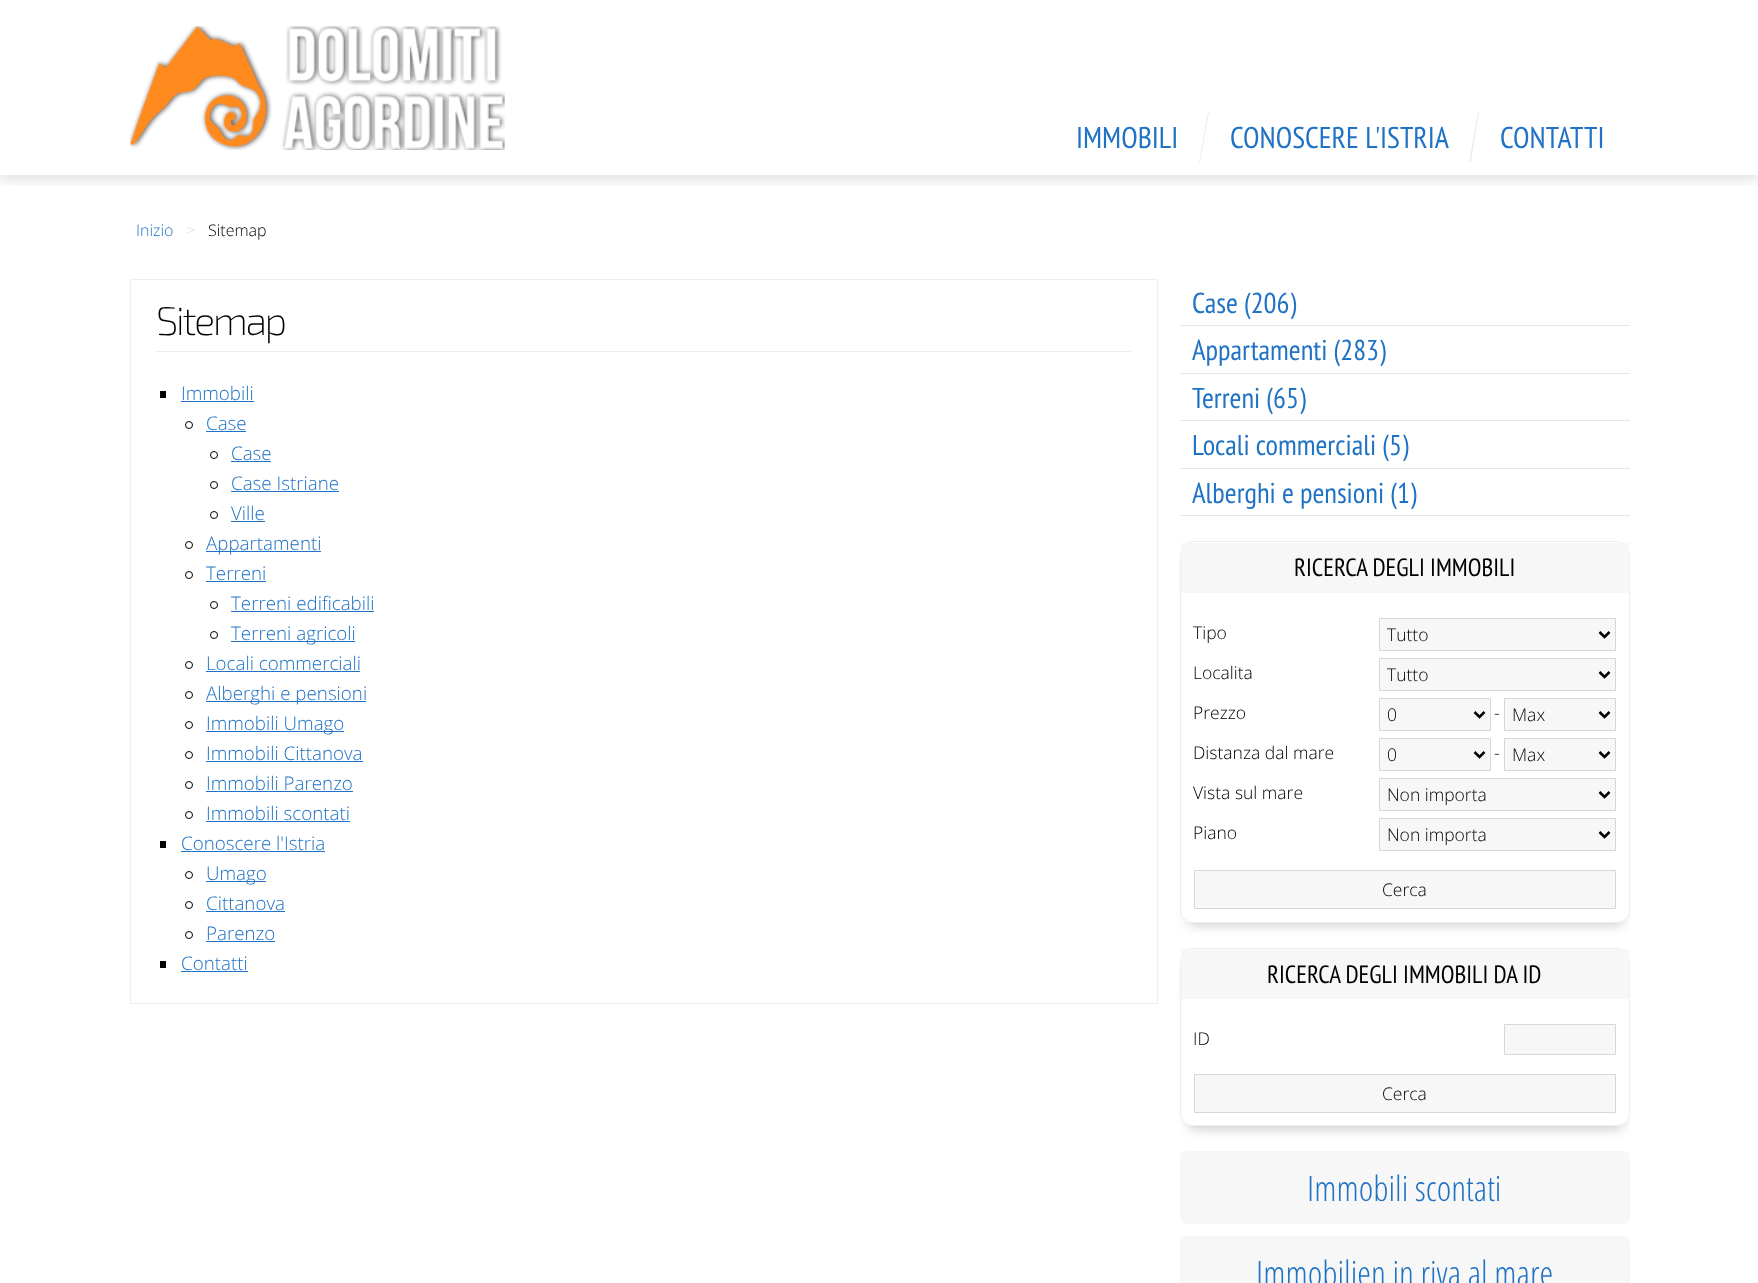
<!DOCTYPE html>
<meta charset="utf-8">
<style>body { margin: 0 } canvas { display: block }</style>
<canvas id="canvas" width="1758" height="1283"></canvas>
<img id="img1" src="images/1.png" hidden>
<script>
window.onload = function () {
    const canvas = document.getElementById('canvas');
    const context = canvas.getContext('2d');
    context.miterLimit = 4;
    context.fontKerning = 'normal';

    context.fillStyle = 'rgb(255, 255, 255)';
    context.fillRect(0, 0, 1758, 1283);
    context.save();
    context.beginPath();
    context.rect(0, 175, 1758, 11);
    context.clip();
    context.fillStyle = 'rgba(0, 0, 0, 0.1)';
    context.filter = 'blur(6px)';
    context.beginPath();
    context.rect(0, 6, 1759, 175);
    context.fill();
    context.filter = 'none';
    context.restore();
    context.drawImage(document.getElementById('img1'), 130, 26, 375, 124);
    context.fillStyle = 'rgb(238, 238, 238)';
    context.beginPath();
    context.moveTo(1208, 112);
    context.lineTo(1209, 112);
    context.lineTo(1200, 162);
    context.lineTo(1199, 162);
    context.closePath();
    context.fill();
    context.beginPath();
    context.moveTo(1478, 112);
    context.lineTo(1479, 112);
    context.lineTo(1471, 162);
    context.lineTo(1469, 162);
    context.closePath();
    context.fill();
    context.strokeStyle = 'rgb(238, 238, 238)';
    context.strokeRect(130.5, 279.5, 1027, 724);
    context.fillRect(156, 351, 975, 1);
    context.fillStyle = 'rgb(0, 0, 0)';
    context.fillRect(160, 391, 6, 7);
    context.fillStyle = 'rgb(31, 114, 196)';
    context.fillRect(181, 401, 73, 1);
    context.beginPath();
    context.arc(189, 425, 3.5, 0, 2 * Math.PI);
    context.strokeStyle = 'rgb(0, 0, 0)';
    context.stroke();
    context.fillRect(206, 431, 40, 1);
    context.beginPath();
    context.arc(214, 455, 3.5, 0, 2 * Math.PI);
    context.stroke();
    context.fillRect(231, 461, 40, 1);
    context.beginPath();
    context.arc(214, 485, 3.5, 0, 2 * Math.PI);
    context.stroke();
    context.fillRect(231, 491, 108, 1);
    context.beginPath();
    context.arc(214, 515, 3.5, 0, 2 * Math.PI);
    context.stroke();
    context.fillRect(231, 521, 34, 1);
    context.beginPath();
    context.arc(189, 545, 3.5, 0, 2 * Math.PI);
    context.stroke();
    context.fillRect(206, 551, 115, 1);
    context.beginPath();
    context.arc(189, 575, 3.5, 0, 2 * Math.PI);
    context.stroke();
    context.fillRect(206, 581, 60, 1);
    context.beginPath();
    context.arc(214, 605, 3.5, 0, 2 * Math.PI);
    context.stroke();
    context.fillRect(231, 611, 143, 1);
    context.beginPath();
    context.arc(214, 635, 3.5, 0, 2 * Math.PI);
    context.stroke();
    context.fillRect(231, 641, 124, 1);
    context.beginPath();
    context.arc(189, 665, 3.5, 0, 2 * Math.PI);
    context.stroke();
    context.fillRect(206, 671, 154, 1);
    context.beginPath();
    context.arc(189, 695, 3.5, 0, 2 * Math.PI);
    context.stroke();
    context.fillRect(206, 701, 160, 1);
    context.beginPath();
    context.arc(189, 725, 3.5, 0, 2 * Math.PI);
    context.stroke();
    context.fillRect(206, 731, 138, 1);
    context.beginPath();
    context.arc(189, 755, 3.5, 0, 2 * Math.PI);
    context.stroke();
    context.fillRect(206, 761, 157, 1);
    context.beginPath();
    context.arc(189, 785, 3.5, 0, 2 * Math.PI);
    context.stroke();
    context.fillRect(206, 791, 147, 1);
    context.beginPath();
    context.arc(189, 815, 3.5, 0, 2 * Math.PI);
    context.stroke();
    context.fillRect(206, 821, 144, 1);
    context.fillStyle = 'rgb(0, 0, 0)';
    context.fillRect(160, 841, 6, 7);
    context.fillStyle = 'rgb(31, 114, 196)';
    context.fillRect(181, 851, 144, 1);
    context.beginPath();
    context.arc(189, 875, 3.5, 0, 2 * Math.PI);
    context.stroke();
    context.fillRect(206, 881, 60, 1);
    context.beginPath();
    context.arc(189, 905, 3.5, 0, 2 * Math.PI);
    context.stroke();
    context.fillRect(206, 911, 79, 1);
    context.beginPath();
    context.arc(189, 935, 3.5, 0, 2 * Math.PI);
    context.stroke();
    context.fillRect(206, 941, 69, 1);
    context.fillStyle = 'rgb(0, 0, 0)';
    context.fillRect(160, 961, 6, 7);
    context.fillStyle = 'rgb(31, 114, 196)';
    context.fillRect(181, 971, 67, 1);
    context.fillStyle = 'rgb(231, 231, 231)';
    context.fillRect(1180, 325, 450, 1);
    context.fillRect(1180, 373, 450, 1);
    context.fillRect(1180, 420, 450, 1);
    context.fillRect(1180, 468, 450, 1);
    context.fillRect(1180, 515, 450, 1);
    context.save();
    context.beginPath();
    context.rect(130, 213, 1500, 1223);
    context.clip();
    context.beginPath();
    context.moveTo(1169, 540);
    context.lineTo(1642, 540);
    context.lineTo(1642, 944);
    context.lineTo(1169, 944);
    context.closePath();
    context.moveTo(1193, 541);
    context.lineTo(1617, 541);
    context.bezierCurveTo(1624, 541, 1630, 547, 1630, 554);
    context.lineTo(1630, 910);
    context.bezierCurveTo(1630, 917, 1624, 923, 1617, 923);
    context.lineTo(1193, 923);
    context.bezierCurveTo(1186, 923, 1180, 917, 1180, 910);
    context.lineTo(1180, 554);
    context.bezierCurveTo(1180, 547, 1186, 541, 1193, 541);
    context.closePath();
    context.clip('evenodd');
    context.fillStyle = 'rgb(204, 204, 204)';
    context.filter = 'blur(6px)';
    context.beginPath();
    context.roundRect(1188, 559, 435, 366, 5);
    context.fill();
    context.filter = 'none';
    context.restore();
    context.beginPath();
    context.roundRect(1180.5, 541.5, 449, 381, 12.5);
    context.strokeStyle = 'rgb(238, 238, 238)';
    context.stroke();
    context.fillStyle = 'rgb(247, 247, 247)';
    context.fillRect(1181, 543, 448, 50);
    context.beginPath();
    context.rect(1379.5, 618.5, 236, 32);
    context.fill();
    context.strokeStyle = 'rgb(215, 215, 215)';
    context.stroke();
    context.beginPath();
    context.moveTo(1599.5, 632);
    context.lineTo(1604.5, 637);
    context.lineTo(1609.5, 632);
    context.strokeStyle = 'rgb(0, 0, 0)';
    context.lineWidth = 2.5;
    context.stroke();
    context.beginPath();
    context.rect(1379.5, 658.5, 236, 32);
    context.fill();
    context.strokeStyle = 'rgb(215, 215, 215)';
    context.lineWidth = 1;
    context.stroke();
    context.beginPath();
    context.moveTo(1599.5, 672);
    context.lineTo(1604.5, 677);
    context.lineTo(1609.5, 672);
    context.strokeStyle = 'rgb(0, 0, 0)';
    context.lineWidth = 2.5;
    context.stroke();
    context.beginPath();
    context.rect(1379.5, 698.5, 111, 32);
    context.fill();
    context.strokeStyle = 'rgb(215, 215, 215)';
    context.lineWidth = 1;
    context.stroke();
    context.beginPath();
    context.moveTo(1474.5, 712);
    context.lineTo(1479.5, 717);
    context.lineTo(1484.5, 712);
    context.strokeStyle = 'rgb(0, 0, 0)';
    context.lineWidth = 2.5;
    context.stroke();
    context.beginPath();
    context.rect(1504.5, 698.5, 111, 32);
    context.fill();
    context.strokeStyle = 'rgb(215, 215, 215)';
    context.lineWidth = 1;
    context.stroke();
    context.beginPath();
    context.moveTo(1599.5, 712);
    context.lineTo(1604.5, 717);
    context.lineTo(1609.5, 712);
    context.strokeStyle = 'rgb(0, 0, 0)';
    context.lineWidth = 2.5;
    context.stroke();
    context.beginPath();
    context.rect(1379.5, 738.5, 111, 32);
    context.fill();
    context.strokeStyle = 'rgb(215, 215, 215)';
    context.lineWidth = 1;
    context.stroke();
    context.beginPath();
    context.moveTo(1474.5, 752);
    context.lineTo(1479.5, 757);
    context.lineTo(1484.5, 752);
    context.strokeStyle = 'rgb(0, 0, 0)';
    context.lineWidth = 2.5;
    context.stroke();
    context.beginPath();
    context.rect(1504.5, 738.5, 111, 32);
    context.fill();
    context.strokeStyle = 'rgb(215, 215, 215)';
    context.lineWidth = 1;
    context.stroke();
    context.beginPath();
    context.moveTo(1599.5, 752);
    context.lineTo(1604.5, 757);
    context.lineTo(1609.5, 752);
    context.strokeStyle = 'rgb(0, 0, 0)';
    context.lineWidth = 2.5;
    context.stroke();
    context.beginPath();
    context.rect(1379.5, 778.5, 236, 32);
    context.fill();
    context.strokeStyle = 'rgb(215, 215, 215)';
    context.lineWidth = 1;
    context.stroke();
    context.beginPath();
    context.moveTo(1599.5, 792);
    context.lineTo(1604.5, 797);
    context.lineTo(1609.5, 792);
    context.strokeStyle = 'rgb(0, 0, 0)';
    context.lineWidth = 2.5;
    context.stroke();
    context.beginPath();
    context.rect(1379.5, 818.5, 236, 32);
    context.fill();
    context.strokeStyle = 'rgb(215, 215, 215)';
    context.lineWidth = 1;
    context.stroke();
    context.beginPath();
    context.moveTo(1599.5, 832);
    context.lineTo(1604.5, 837);
    context.lineTo(1609.5, 832);
    context.strokeStyle = 'rgb(0, 0, 0)';
    context.lineWidth = 2.5;
    context.stroke();
    context.beginPath();
    context.rect(1194.5, 870.5, 421, 38);
    context.fill();
    context.strokeStyle = 'rgb(215, 215, 215)';
    context.lineWidth = 1;
    context.stroke();
    context.save();
    context.beginPath();
    context.rect(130, 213, 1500, 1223);
    context.clip();
    context.beginPath();
    context.moveTo(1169, 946);
    context.lineTo(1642, 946);
    context.lineTo(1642, 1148);
    context.lineTo(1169, 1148);
    context.closePath();
    context.moveTo(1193, 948);
    context.lineTo(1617, 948);
    context.bezierCurveTo(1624, 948, 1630, 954, 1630, 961);
    context.lineTo(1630, 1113);
    context.bezierCurveTo(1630, 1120, 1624, 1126, 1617, 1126);
    context.lineTo(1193, 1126);
    context.bezierCurveTo(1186, 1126, 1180, 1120, 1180, 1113);
    context.lineTo(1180, 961);
    context.bezierCurveTo(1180, 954, 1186, 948, 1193, 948);
    context.closePath();
    context.clip('evenodd');
    context.fillStyle = 'rgb(204, 204, 204)';
    context.filter = 'blur(6px)';
    context.beginPath();
    context.roundRect(1188, 965, 435, 164, 5);
    context.fill();
    context.filter = 'none';
    context.restore();
    context.beginPath();
    context.roundRect(1180.5, 948.5, 449, 177, 12.5);
    context.strokeStyle = 'rgb(238, 238, 238)';
    context.stroke();
    context.fillRect(1181, 949, 448, 50);
    context.beginPath();
    context.rect(1504.5, 1024.5, 111, 30);
    context.fill();
    context.strokeStyle = 'rgb(215, 215, 215)';
    context.stroke();
    context.beginPath();
    context.rect(1194.5, 1074.5, 421, 38);
    context.fill();
    context.stroke();
    context.beginPath();
    context.roundRect(1180, 1151, 450, 73, 6);
    context.fill();
    context.beginPath();
    context.roundRect(1180, 1236, 450, 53, 6);
    context.fill();
    context.font = '30px PT Sans Narrow';
    context.fillStyle = 'rgb(31, 114, 196)';
    context.fillText('IMMOBILI', 1076, 148);
    context.fillText('CONOSCERE L\'ISTRIA', 1230, 148);
    context.fillText('CONTATTI', 1500, 148);
    context.font = '300 16px Open Sans';
    context.fillText('Inizio', 136, 236);
    context.fillStyle = 'rgb(221, 221, 221)';
    context.fillText('>', 186, 236);
    context.fillStyle = 'rgb(0, 0, 0)';
    context.fillText('Sitemap', 208, 236);
    context.letterSpacing = '-2.5px';
    context.font = '200 40px "Exo 2"';
    context.fillText('Sitemap', 156, 335);
    context.letterSpacing = '0px';
    context.font = '300 18.75px Open Sans';
    context.fillStyle = 'rgb(31, 114, 196)';
    context.fillText('Immobili', 181, 400);
    context.fillText('Case', 206, 430);
    context.fillText('Case', 231, 460);
    context.fillText('Case Istriane', 231, 490);
    context.fillText('Ville', 231, 520);
    context.fillText('Appartamenti', 206, 550);
    context.fillText('Terreni', 206, 580);
    context.fillText('Terreni edificabili', 231, 610);
    context.fillText('Terreni agricoli', 231, 640);
    context.fillText('Locali commerciali', 206, 670);
    context.fillText('Alberghi e pensioni', 206, 700);
    context.fillText('Immobili Umago', 206, 730);
    context.fillText('Immobili Cittanova', 206, 760);
    context.fillText('Immobili Parenzo', 206, 790);
    context.fillText('Immobili scontati', 206, 820);
    context.fillText('Conoscere l\'Istria', 181, 850);
    context.fillText('Umago', 206, 880);
    context.fillText('Cittanova', 206, 910);
    context.fillText('Parenzo', 206, 940);
    context.fillText('Contatti', 181, 970);
    context.font = '28.75px PT Sans Narrow';
    context.fillText('Case (206)', 1192, 313);
    context.fillText('Appartamenti (283)', 1192, 360);
    context.fillText('Terreni (65)', 1192, 408);
    context.fillText('Locali commerciali (5)', 1192, 455);
    context.fillText('Alberghi e pensioni (1)', 1192, 503);
    context.font = '25px PT Sans Narrow';
    context.fillStyle = 'rgb(0, 0, 0)';
    context.fillText('RICERCA DEGLI IMMOBILI', 1294, 576);
    context.font = '300 17.5px Open Sans';
    context.fillText('Tipo', 1193, 639);
    context.fillText('Tutto', 1387, 641);
    context.fillText('Localita', 1193, 679);
    context.fillText('Tutto', 1387, 681);
    context.fillText('Prezzo', 1193, 719);
    context.save();
    context.beginPath();
    context.rect(1388, 701, 80, 27);
    context.clip();
    context.fillText('0', 1387, 721);
    context.restore();
    context.fillText('-', 1494, 719);
    context.fillText('Max', 1512, 721);
    context.fillText('Distanza dal mare', 1193, 759);
    context.save();
    context.beginPath();
    context.rect(1388, 741, 80, 27);
    context.clip();
    context.fillText('0', 1387, 761);
    context.restore();
    context.fillText('-', 1494, 759);
    context.fillText('Max', 1512, 761);
    context.fillText('Vista sul mare', 1193, 799);
    context.fillText('Non importa', 1387, 801);
    context.fillText('Piano', 1193, 839);
    context.fillText('Non importa', 1387, 841);
    context.fillText('Cerca', 1382, 896);
    context.font = '25px PT Sans Narrow';
    context.fillText('RICERCA DEGLI IMMOBILI DA ID', 1267, 983);
    context.font = '300 17.5px Open Sans';
    context.fillText('ID', 1193, 1045);
    context.fillText('Cerca', 1382, 1100);
    context.font = '300 35px Open Sans Condensed';
    context.fillStyle = 'rgb(31, 114, 196)';
    context.fillText('Immobili scontati', 1307, 1201);
    context.fillText('Immobilien in riva al mare', 1256, 1286);
};
</script>
